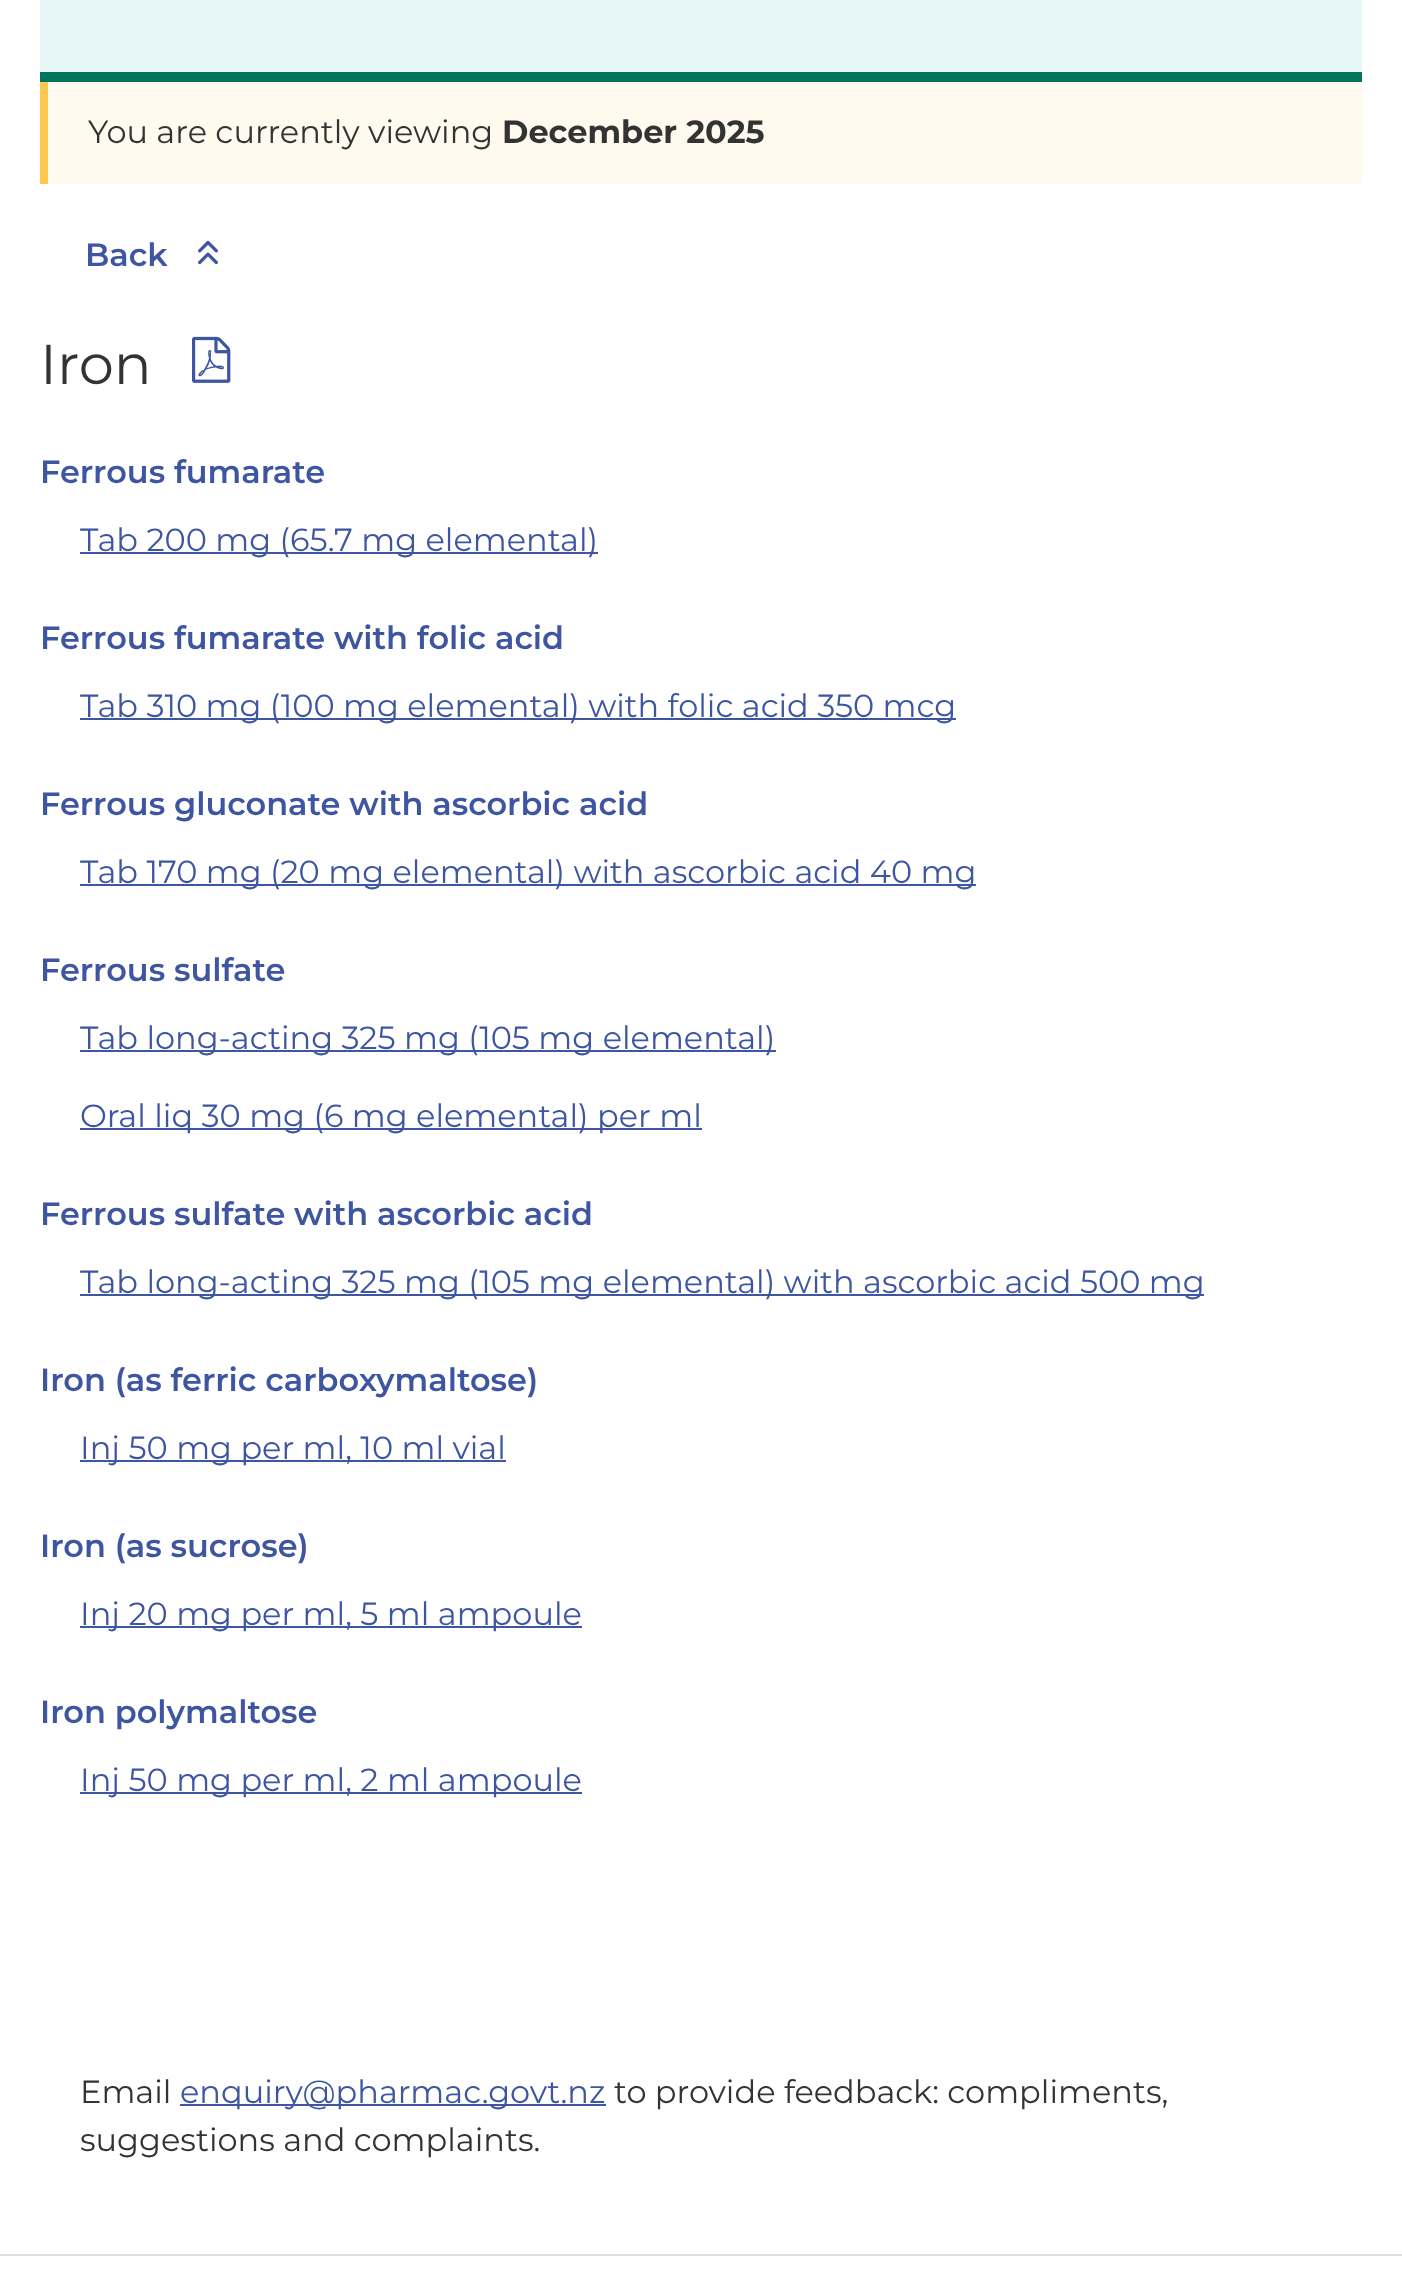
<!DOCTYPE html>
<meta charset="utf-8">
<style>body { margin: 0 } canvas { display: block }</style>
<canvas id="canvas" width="1402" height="2295"></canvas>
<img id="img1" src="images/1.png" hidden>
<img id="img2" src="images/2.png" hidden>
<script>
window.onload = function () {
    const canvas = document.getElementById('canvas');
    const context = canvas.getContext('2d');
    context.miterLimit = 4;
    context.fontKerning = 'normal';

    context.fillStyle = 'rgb(255, 255, 255)';
    context.fillRect(0, 0, 1402, 2295);
    context.fillStyle = 'rgb(231, 246, 246)';
    context.fillRect(40, 0, 1322, 72);
    context.fillStyle = 'rgb(1, 116, 93)';
    context.fillRect(40, 72, 1322, 10);
    context.fillStyle = 'rgb(255, 250, 237)';
    context.fillRect(48, 82, 1314, 102);
    context.fillStyle = 'rgb(253, 200, 79)';
    context.fillRect(40, 82, 8, 102);
    context.drawImage(document.getElementById('img1'), 198, 240, 20, 25);
    context.drawImage(document.getElementById('img2'), 192, 336, 39, 47);
    context.fillStyle = 'rgb(62, 85, 161)';
    context.fillRect(80, 552, 518, 2);
    context.fillRect(80, 718, 876, 2);
    context.fillRect(80, 884, 896, 2);
    context.fillRect(80, 1050, 696, 2);
    context.fillRect(80, 1128, 622, 2);
    context.fillRect(80, 1294, 1124, 2);
    context.fillRect(80, 1460, 426, 2);
    context.fillRect(80, 1626, 502, 2);
    context.fillRect(80, 1792, 502, 2);
    context.fillRect(180, 2104, 426, 2);
    context.fillStyle = 'rgb(224, 224, 224)';
    context.fillRect(0, 2254, 1402, 2);
    context.font = '32px Montserrat';
    context.fillStyle = 'rgb(51, 51, 51)';
    context.fillText('You are currently viewing', 88, 143);
    context.font = 'bold 32px Montserrat';
    context.fillText('December 2025', 502, 143);
    context.font = '32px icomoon';
    context.fillStyle = 'rgb(62, 85, 161)';
    context.save();
    context.translate(59, 238);
    context.rotate(180 * Math.PI / 180);
    context.fillText('', 0, 0);
    context.restore();
    context.font = '600 32px Montserrat';
    context.fillText('Back', 85, 266);
    context.font = '56px Montserrat';
    context.fillStyle = 'rgb(51, 51, 51)';
    context.fillText('Iron', 40, 384);
    context.font = '600 32px Montserrat';
    context.fillStyle = 'rgb(62, 85, 161)';
    context.fillText('Ferrous fumarate', 40, 483);
    context.font = '32px Montserrat';
    context.fillText('Tab 200 mg (65.7 mg elemental)', 80, 551);
    context.font = '600 32px Montserrat';
    context.fillText('Ferrous fumarate with folic acid', 40, 649);
    context.font = '32px Montserrat';
    context.fillText('Tab 310 mg (100 mg elemental) with folic acid 350 mcg', 80, 717);
    context.font = '600 32px Montserrat';
    context.fillText('Ferrous gluconate with ascorbic acid', 40, 815);
    context.font = '32px Montserrat';
    context.fillText('Tab 170 mg (20 mg elemental) with ascorbic acid 40 mg', 80, 883);
    context.font = '600 32px Montserrat';
    context.fillText('Ferrous sulfate', 40, 981);
    context.font = '32px Montserrat';
    context.fillText('Tab long-acting 325 mg (105 mg elemental)', 80, 1049);
    context.fillText('Oral liq 30 mg (6 mg elemental) per ml', 80, 1127);
    context.font = '600 32px Montserrat';
    context.fillText('Ferrous sulfate with ascorbic acid', 40, 1225);
    context.font = '32px Montserrat';
    context.fillText('Tab long-acting 325 mg (105 mg elemental) with ascorbic acid 500 mg', 80, 1293);
    context.font = '600 32px Montserrat';
    context.fillText('Iron (as ferric carboxymaltose)', 40, 1391);
    context.font = '32px Montserrat';
    context.fillText('Inj 50 mg per ml, 10 ml vial', 80, 1459);
    context.font = '600 32px Montserrat';
    context.fillText('Iron (as sucrose)', 40, 1557);
    context.font = '32px Montserrat';
    context.fillText('Inj 20 mg per ml, 5 ml ampoule', 80, 1625);
    context.font = '600 32px Montserrat';
    context.fillText('Iron polymaltose', 40, 1723);
    context.font = '32px Montserrat';
    context.fillText('Inj 50 mg per ml, 2 ml ampoule', 80, 1791);
    context.font = '36px icomoon';
    context.fillStyle = 'rgb(159, 219, 218)';
    context.fillText('', 38, 2107);
    context.font = '32px Montserrat';
    context.fillStyle = 'rgb(51, 51, 51)';
    context.fillText('Email', 80, 2103);
    context.fillStyle = 'rgb(62, 85, 161)';
    context.fillText('enquiry@pharmac.govt.nz', 180, 2103);
    context.fillStyle = 'rgb(51, 51, 51)';
    context.fillText('to provide feedback: compliments,', 614, 2103);
    context.fillText('suggestions and complaints.', 80, 2151);
};
</script>
